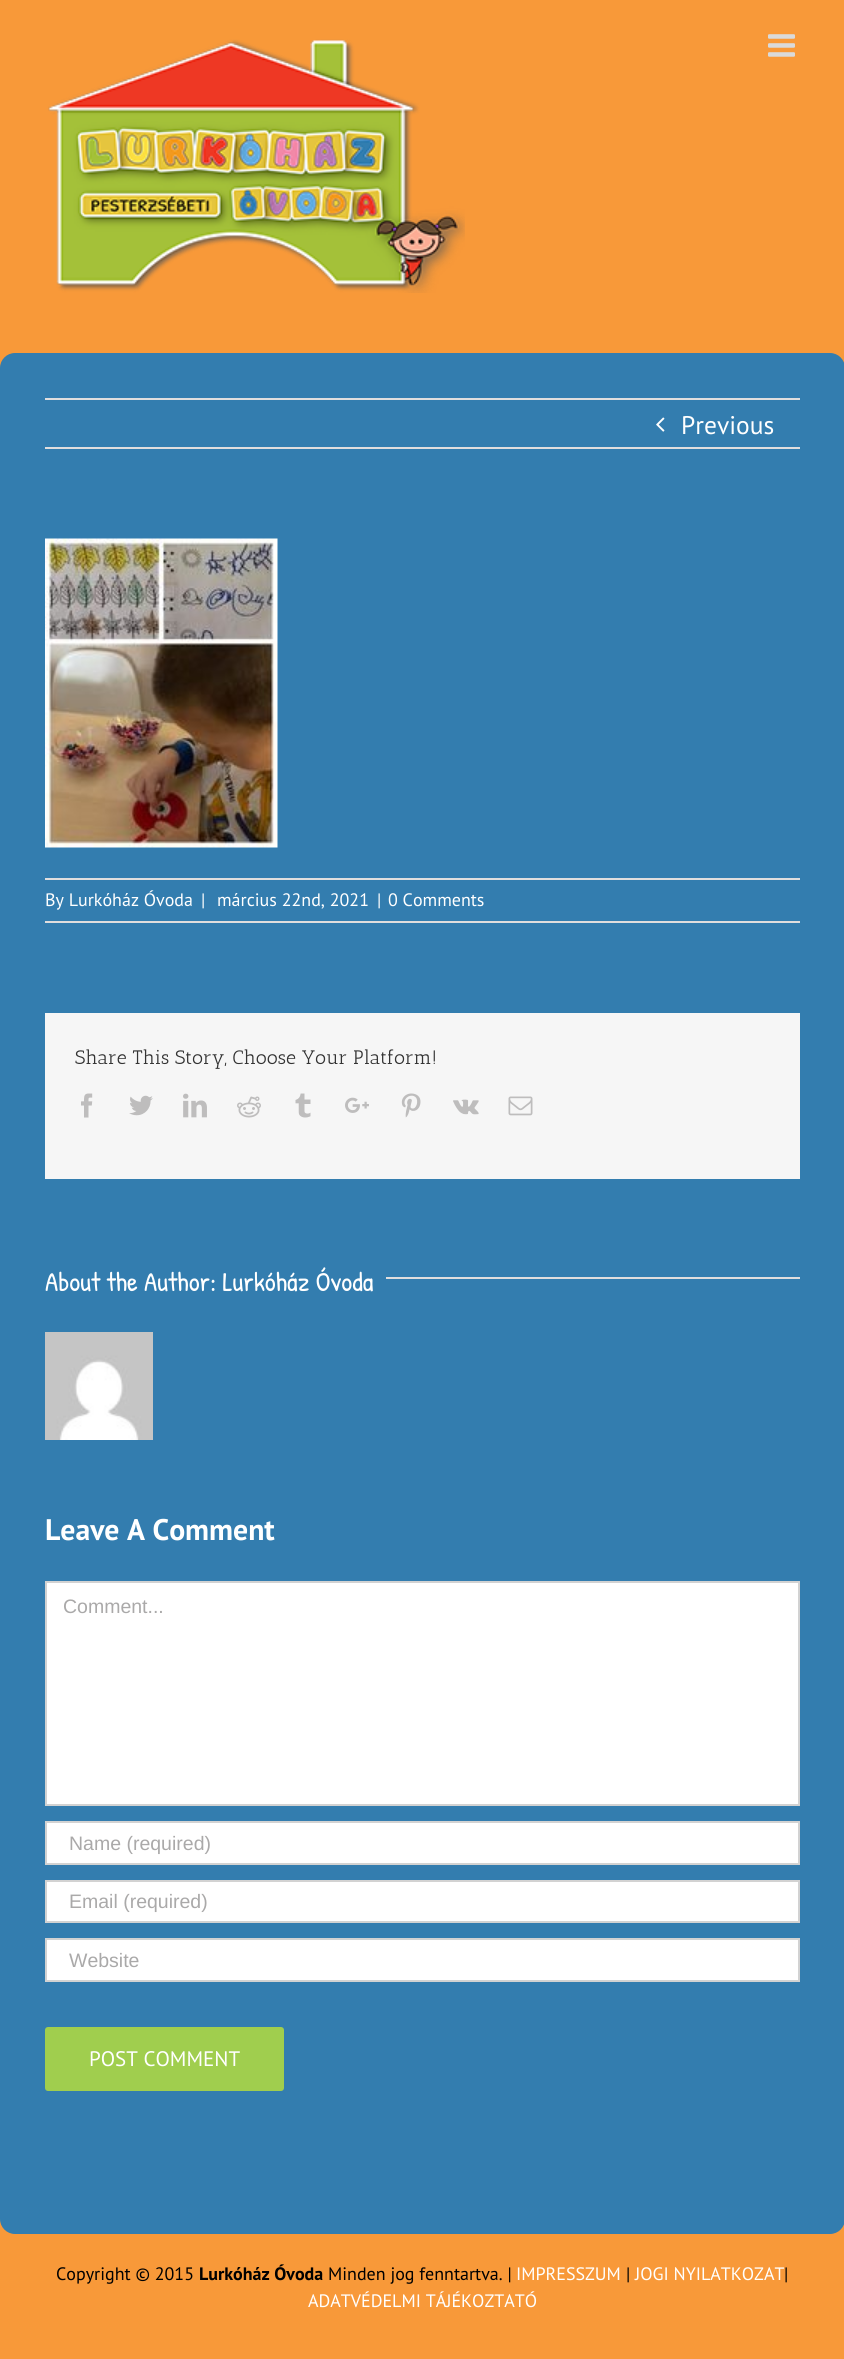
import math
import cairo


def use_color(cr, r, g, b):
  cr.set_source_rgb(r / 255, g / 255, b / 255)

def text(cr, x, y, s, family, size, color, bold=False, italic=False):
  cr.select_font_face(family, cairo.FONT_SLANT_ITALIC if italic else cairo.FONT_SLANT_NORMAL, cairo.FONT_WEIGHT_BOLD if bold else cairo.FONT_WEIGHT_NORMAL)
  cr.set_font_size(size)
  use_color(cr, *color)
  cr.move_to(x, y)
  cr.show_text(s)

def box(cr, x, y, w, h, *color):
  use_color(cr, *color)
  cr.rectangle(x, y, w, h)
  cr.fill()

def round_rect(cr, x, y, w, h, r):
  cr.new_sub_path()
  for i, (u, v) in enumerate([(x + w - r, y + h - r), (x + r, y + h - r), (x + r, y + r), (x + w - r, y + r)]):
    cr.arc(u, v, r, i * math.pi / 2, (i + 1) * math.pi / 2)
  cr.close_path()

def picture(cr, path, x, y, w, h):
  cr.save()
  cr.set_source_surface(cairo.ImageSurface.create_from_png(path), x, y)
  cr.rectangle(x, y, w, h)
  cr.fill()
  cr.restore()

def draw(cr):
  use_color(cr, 255, 255, 255)
  cr.paint()
  picture(cr, "img_01.png", 0, 0, 844, 2359)
  picture(cr, "img_02.png", 48, 39, 417, 254)
  picture(cr, "img_03.png", 768, 34, 27, 23)
  use_color(cr, 51, 125, 175)
  round_rect(cr, 0, 353, 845, 1881, 15)
  cr.fill()
  box(cr, 45, 398, 755, 2, 224, 222, 222)
  box(cr, 45, 447, 755, 2, 224, 222, 222)
  picture(cr, "img_04.png", 656, 417, 9, 15)
  picture(cr, "img_05.png", 45, 538, 233, 310)
  box(cr, 45, 878, 755, 2, 224, 222, 222)
  box(cr, 45, 921, 755, 2, 224, 222, 222)
  box(cr, 45, 1013, 755, 166, 246, 246, 246)
  picture(cr, "img_06.png", 81, 1093, 12, 25)
  picture(cr, "img_07.png", 129, 1095, 24, 21)
  picture(cr, "img_08.png", 183, 1093, 24, 25)
  picture(cr, "img_09.png", 237, 1096, 24, 22)
  picture(cr, "img_10.png", 295, 1093, 16, 25)
  picture(cr, "img_11.png", 345, 1097, 24, 16)
  picture(cr, "img_12.png", 401, 1093, 20, 25)
  picture(cr, "img_13.png", 453, 1099, 26, 16)
  picture(cr, "img_14.png", 508, 1096, 25, 20)
  box(cr, 386, 1277, 414, 2, 224, 222, 222)
  picture(cr, "img_15.png", 45, 1332, 108, 108)
  use_color(cr, 255, 255, 255)
  cr.rectangle(46, 1582, 753, 223)
  cr.fill_preserve()
  use_color(cr, 210, 210, 210)
  cr.stroke()
  use_color(cr, 255, 255, 255)
  cr.rectangle(46, 1822, 753, 42)
  cr.fill_preserve()
  use_color(cr, 210, 210, 210)
  cr.stroke()
  use_color(cr, 255, 255, 255)
  cr.rectangle(46, 1881, 753, 41)
  cr.fill_preserve()
  use_color(cr, 210, 210, 210)
  cr.stroke()
  use_color(cr, 255, 255, 255)
  cr.rectangle(46, 1939, 753, 42)
  cr.fill_preserve()
  use_color(cr, 210, 210, 210)
  cr.stroke()
  use_color(cr, 160, 206, 78)
  round_rect(cr, 45, 2027, 239, 64, 3)
  cr.fill()
  text(cr, 681, 434, "Previous", "PT Sans", 25.5, (255, 255, 255))
  text(cr, 45, 906, "By Lurkóház Óvoda", "PT Sans", 18, (255, 255, 255))
  text(cr, 201, 906, "|", "PT Sans", 18, (255, 255, 255))
  text(cr, 217, 906, "március 22nd, 2021", "PT Sans", 18, (255, 255, 255))
  text(cr, 377, 906, "|", "PT Sans", 18, (255, 255, 255))
  text(cr, 388, 906, "0 Comments", "PT Sans", 18, (255, 255, 255))
  text(cr, 75, 1064, "Share This Story, Choose Your Platform!", "Antic Slab", 19.5, (51, 51, 51))
  text(cr, 45, 1291, "About the Author: Lurkóház Óvoda", "Patrick Hand", 27, (255, 255, 255))
  text(cr, 45, 1540, "Leave A Comment", "PT Sans", 29.75, (255, 255, 255), bold=True)
  text(cr, 63, 1613, "Comment...", "Liberation Sans", 19.5, (170, 169, 169))
  text(cr, 69, 1850, "Name (required)", "Liberation Sans", 19.5, (170, 169, 169))
  text(cr, 69, 1908, "Email (required)", "Liberation Sans", 19.5, (170, 169, 169))
  text(cr, 69, 1967, "Website", "Liberation Sans", 19.5, (170, 169, 169))
  text(cr, 89, 2066, "POST COMMENT", "PT Sans", 21, (255, 255, 255))
  text(cr, 56, 2280, "Copyright © 2015", "PT Sans", 18, (0, 0, 0))
  text(cr, 199, 2280, "Lurkóház Óvoda", "PT Sans", 18, (0, 0, 0), bold=True)
  text(cr, 328, 2280, "Minden jog fenntartva. |", "PT Sans", 18, (0, 0, 0))
  text(cr, 516, 2280, "IMPRESSZUM", "PT Sans", 18, (255, 255, 255))
  text(cr, 626, 2280, "|", "PT Sans", 18, (0, 0, 0))
  text(cr, 635, 2280, "JOGI NYILATKOZAT", "PT Sans", 18, (255, 255, 255))
  text(cr, 784, 2280, "|", "PT Sans", 18, (0, 0, 0))
  text(cr, 308, 2307, "ADATVÉDELMI TÁJÉKOZTATÓ", "PT Sans", 18, (255, 255, 255))


surface = cairo.ImageSurface(cairo.FORMAT_RGB24, 844, 2359)
cr = cairo.Context(surface)
options = cairo.FontOptions()
options.set_hint_metrics(cairo.HINT_METRICS_OFF)
options.set_hint_style(cairo.HINT_STYLE_NONE)
cr.set_font_options(options)
cr.set_miter_limit(4)
draw(cr)
surface.write_to_png("out.png")
